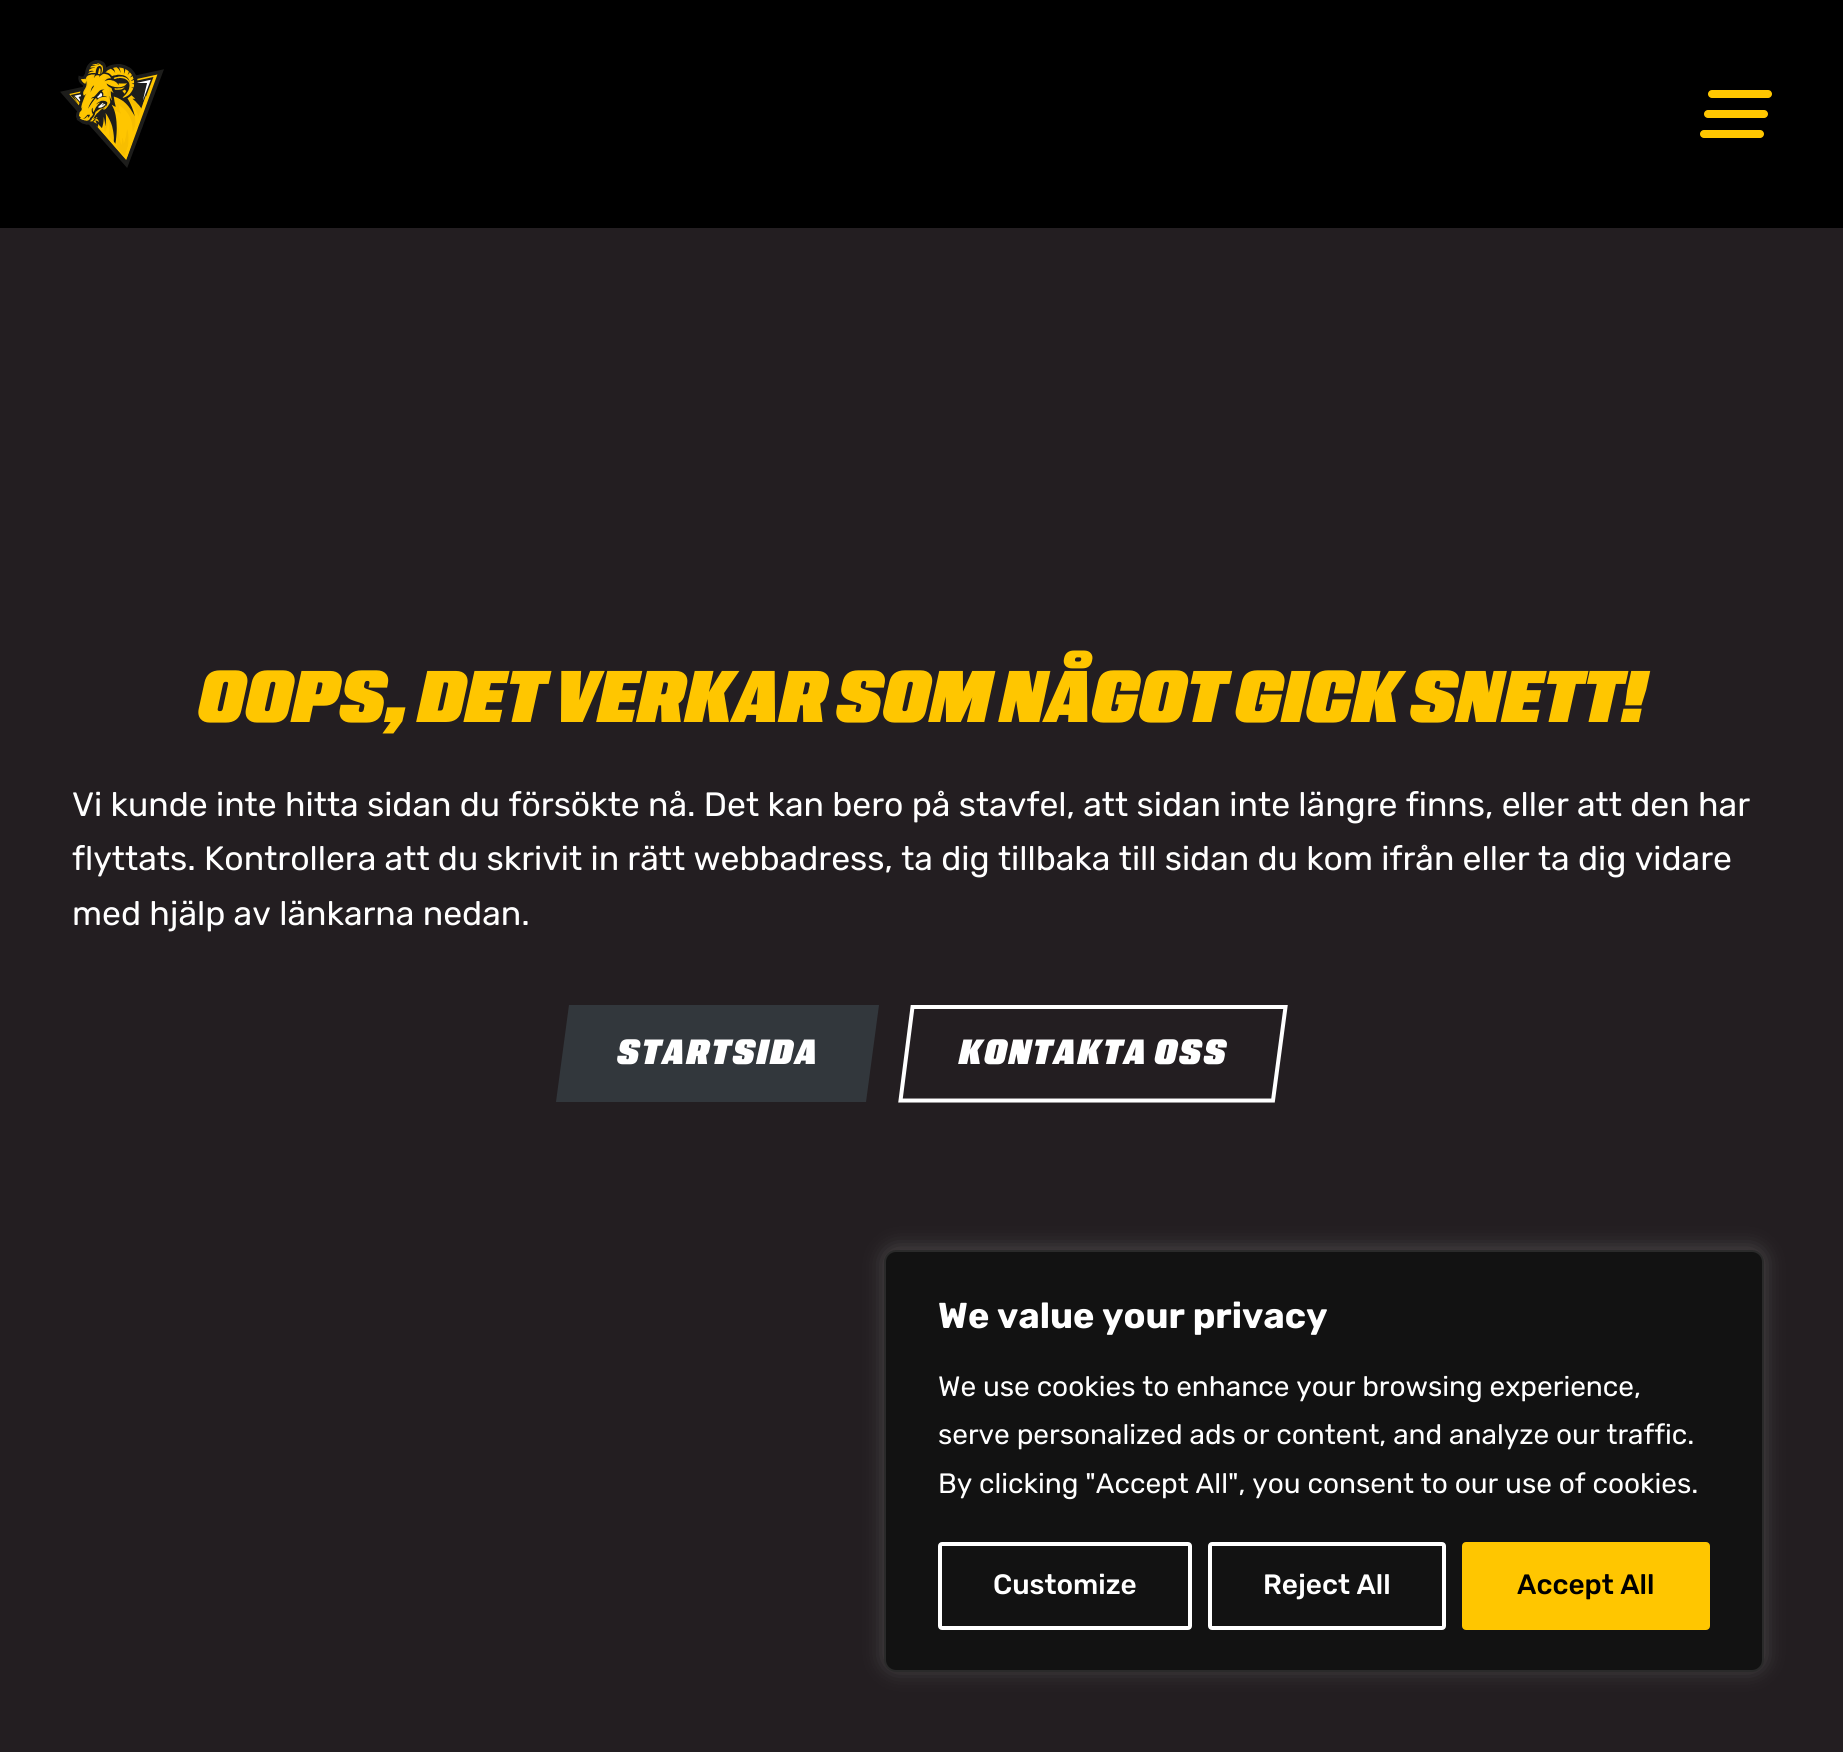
import math
import cairo


def use_color(cr, r, g, b):
  cr.set_source_rgb(r / 255, g / 255, b / 255)

def text(cr, x, y, s, family, size, color, bold=False, italic=False):
  cr.select_font_face(family, cairo.FONT_SLANT_ITALIC if italic else cairo.FONT_SLANT_NORMAL, cairo.FONT_WEIGHT_BOLD if bold else cairo.FONT_WEIGHT_NORMAL)
  cr.set_font_size(size)
  use_color(cr, *color)
  cr.move_to(x, y)
  cr.show_text(s)

def spaced_text(cr, x, y, s, letter, word):
  cr.move_to(x, y)
  for ch in s:
    cr.show_text(ch)
    cr.rel_move_to(letter + word * (ch == ' '), 0)

def box(cr, x, y, w, h, *color):
  use_color(cr, *color)
  cr.rectangle(x, y, w, h)
  cr.fill()

def round_rect(cr, x, y, w, h, r):
  cr.new_sub_path()
  for i, (u, v) in enumerate([(x + w - r, y + h - r), (x + r, y + h - r), (x + r, y + r), (x + w - r, y + r)]):
    cr.arc(u, v, r, i * math.pi / 2, (i + 1) * math.pi / 2)
  cr.close_path()

def shadow(cr, x, y, w, h, r, blur, alpha):
  cr.push_group_with_content(cairo.CONTENT_ALPHA)
  cr.set_operator(cairo.OPERATOR_SOURCE)
  for i in range(15, -16, -2):
    e = blur * i / 6
    if min(w, h) + 2 * e > 0:
      cr.set_source_rgba(0, 0, 0, alpha * math.erfc((i - 1) / 8.5) / 2)
      round_rect(cr, x - e, y - e, w + 2 * e, h + 2 * e, max(0, min(r + e + blur * .6, min(w, h) / 2 + e)))
      cr.fill()
  cr.mask(cr.pop_group())

def picture(cr, path, x, y, w, h):
  cr.save()
  cr.set_source_surface(cairo.ImageSurface.create_from_png(path), x, y)
  cr.rectangle(x, y, w, h)
  cr.fill()
  cr.restore()

def draw(cr):
  use_color(cr, 35, 30, 33)
  cr.paint()
  box(cr, 0, 0, 1843, 228, 0, 0, 0)
  picture(cr, "img_01.png", 60, 60, 104, 108)
  use_color(cr, 255, 198, 0)
  round_rect(cr, 1708, 90, 64, 8, 4)
  cr.fill()
  round_rect(cr, 1704, 110, 64, 8, 4)
  cr.fill()
  round_rect(cr, 1700, 130, 64, 8, 4)
  cr.fill()
  use_color(cr, 50, 55, 60)
  cr.new_path()
  cr.move_to(569, 1005)
  cr.line_to(879, 1005)
  cr.line_to(866, 1102)
  cr.line_to(556, 1102)
  cr.close_path()
  cr.fill()
  cr.new_path()
  cr.move_to(912.5, 1007)
  cr.line_to(1285.5, 1007)
  cr.line_to(1273, 1100.5)
  cr.line_to(900.5, 1100.5)
  cr.close_path()
  use_color(cr, 255, 255, 255)
  cr.set_line_width(4)
  cr.stroke()
  use_color(cr, 172, 171, 171)
  shadow(cr, 884, 1248, 880, 422, 12, 10, 0.3)
  use_color(cr, 18, 18, 18)
  round_rect(cr, 885, 1251, 878, 420, 11)
  cr.fill_preserve()
  use_color(cr, 42, 42, 42)
  cr.set_line_width(2)
  cr.stroke()
  round_rect(cr, 940, 1544, 250, 84, 2)
  use_color(cr, 255, 255, 255)
  cr.set_line_width(4)
  cr.stroke()
  round_rect(cr, 1210, 1544, 234, 84, 2)
  cr.stroke()
  use_color(cr, 255, 198, 0)
  round_rect(cr, 1464, 1544, 244, 84, 2)
  cr.fill_preserve()
  cr.stroke()
  text(cr, 198, 722, "OOPS, DET VERKAR SOM NÅGOT GICK SNETT!", "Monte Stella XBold", 75.1, (255, 198, 0), bold=True, italic=True)
  text(cr, 72, 816, "Vi kunde inte hitta sidan du försökte nå. Det kan bero på stavfel, att sidan inte längre finns, eller att den har", "Rubik", 33.75, (255, 255, 255))
  text(cr, 72, 870, "flyttats. Kontrollera att du skrivit in rätt webbadress, ta dig tillbaka till sidan du kom ifrån eller ta dig vidare", "Rubik", 33.75, (255, 255, 255))
  text(cr, 72, 925, "med hjälp av länkarna nedan.", "Rubik", 33.75, (255, 255, 255))
  cr.select_font_face("Monte Stella XBold", cairo.FONT_SLANT_ITALIC, cairo.FONT_WEIGHT_BOLD)
  cr.set_font_size(36)
  spaced_text(cr, 617, 1064, "STARTSIDA", 2, 0)
  spaced_text(cr, 959, 1064, "KONTAKTA OSS", 2, 0)
  text(cr, 938, 1328, "We value your privacy", "Rubik", 36, (255, 255, 255), bold=True)
  text(cr, 938, 1396, "We use cookies to enhance your browsing experience,", "Rubik", 28, (255, 255, 255))
  text(cr, 938, 1444, "serve personalized ads or content, and analyze our traffic.", "Rubik", 28, (255, 255, 255))
  text(cr, 938, 1493, "By clicking \"Accept All\", you consent to our use of cookies.", "Rubik", 28, (255, 255, 255))
  text(cr, 993, 1594, "Customize", "Rubik Medium", 28, (255, 255, 255))
  text(cr, 1263, 1594, "Reject All", "Rubik Medium", 28, (255, 255, 255))
  text(cr, 1517, 1594, "Accept All", "Rubik Medium", 28, (0, 0, 0))


surface = cairo.ImageSurface(cairo.FORMAT_RGB24, 1843, 1752)
cr = cairo.Context(surface)
options = cairo.FontOptions()
options.set_hint_metrics(cairo.HINT_METRICS_OFF)
options.set_hint_style(cairo.HINT_STYLE_NONE)
cr.set_font_options(options)
cr.set_miter_limit(4)
draw(cr)
surface.write_to_png("out.png")
